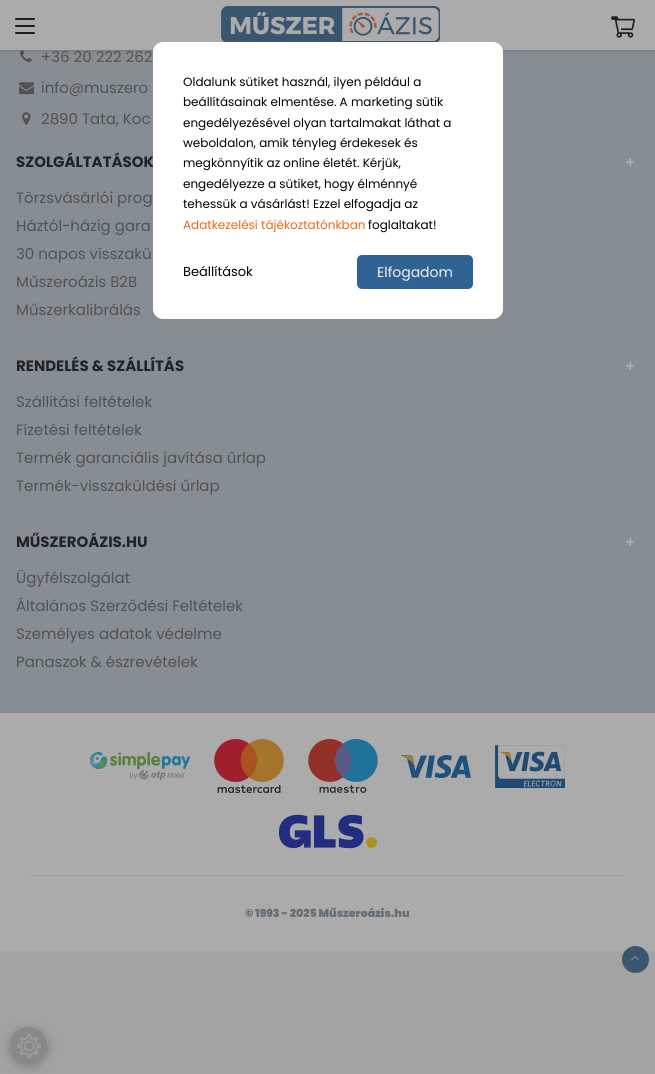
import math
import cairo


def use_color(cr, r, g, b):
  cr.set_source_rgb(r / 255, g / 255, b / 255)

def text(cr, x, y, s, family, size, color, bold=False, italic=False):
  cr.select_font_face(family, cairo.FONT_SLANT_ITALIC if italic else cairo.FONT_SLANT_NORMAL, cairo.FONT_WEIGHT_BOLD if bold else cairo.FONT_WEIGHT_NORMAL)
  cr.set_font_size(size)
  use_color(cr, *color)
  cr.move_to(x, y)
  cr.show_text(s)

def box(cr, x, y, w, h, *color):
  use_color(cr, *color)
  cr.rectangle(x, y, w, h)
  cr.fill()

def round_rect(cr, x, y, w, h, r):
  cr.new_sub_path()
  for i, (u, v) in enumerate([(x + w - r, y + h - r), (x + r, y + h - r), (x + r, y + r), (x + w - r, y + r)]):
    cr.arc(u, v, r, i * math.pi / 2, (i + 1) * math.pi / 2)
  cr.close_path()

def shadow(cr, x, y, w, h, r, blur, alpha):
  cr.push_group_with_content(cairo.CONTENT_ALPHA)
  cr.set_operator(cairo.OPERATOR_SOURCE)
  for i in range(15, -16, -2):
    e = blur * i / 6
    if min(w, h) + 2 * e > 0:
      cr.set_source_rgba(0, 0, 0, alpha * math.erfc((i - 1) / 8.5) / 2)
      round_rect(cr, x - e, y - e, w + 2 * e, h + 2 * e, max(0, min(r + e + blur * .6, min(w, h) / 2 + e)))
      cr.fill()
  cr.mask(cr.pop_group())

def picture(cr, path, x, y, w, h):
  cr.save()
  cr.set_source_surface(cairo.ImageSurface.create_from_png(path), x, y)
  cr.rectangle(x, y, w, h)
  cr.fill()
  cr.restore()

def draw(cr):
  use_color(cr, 163, 163, 163)
  cr.paint()
  box(cr, 0, 50, 655, 663, 135, 142, 147)
  picture(cr, "img_03.png", 20, 50, 12, 12)
  use_color(cr, 31, 31, 31)
  shadow(cr, 0, 1, 655, 50, 0, 1.5, 0.2)
  box(cr, 0, 0, 655, 50, 171, 171, 171)
  use_color(cr, 31, 31, 31)
  round_rect(cr, 15, 18, 20, 2, 1)
  cr.fill()
  round_rect(cr, 15, 25, 20, 2, 1)
  cr.fill()
  round_rect(cr, 15, 32, 20, 2, 1)
  cr.fill()
  picture(cr, "img_01.png", 221, 6, 219, 36)
  picture(cr, "img_02.png", 611, 16, 24, 22)
  box(cr, 0, 713, 655, 238, 171, 171, 171)
  picture(cr, "img_04.png", 19, 82, 15, 13)
  picture(cr, "img_05.png", 22, 112, 9, 13)
  box(cr, 629, 158, 2, 8, 171, 171, 171)
  box(cr, 626, 161, 8, 2, 171, 171, 171)
  box(cr, 629, 362, 2, 8, 171, 171, 171)
  box(cr, 626, 365, 8, 2, 171, 171, 171)
  box(cr, 629, 538, 2, 8, 171, 171, 171)
  box(cr, 626, 541, 8, 2, 171, 171, 171)
  picture(cr, "img_06.png", 90, 752, 100, 28)
  picture(cr, "img_07.png", 214, 739, 70, 54)
  picture(cr, "img_08.png", 308, 739, 70, 54)
  picture(cr, "img_09.png", 401, 755, 70, 23)
  picture(cr, "img_10.png", 495, 745, 70, 43)
  picture(cr, "img_11.png", 278, 814, 100, 35)
  box(cr, 31, 875, 593, 1, 157, 159, 160)
  use_color(cr, 57, 85, 111)
  cr.arc(635.5, 959.5, 13.5, 0, 2 * math.pi)
  cr.fill()
  use_color(cr, 164, 164, 164)
  cr.new_path()
  cr.move_to(631.5, 960.5)
  cr.line_to(631, 960)
  cr.line_to(635, 956)
  cr.line_to(635.5, 956.5)
  cr.close_path()
  cr.fill()
  cr.new_path()
  cr.move_to(638.5, 960.5)
  cr.line_to(634.5, 956.5)
  cr.line_to(635, 956)
  cr.line_to(639, 960)
  cr.close_path()
  cr.fill()
  cr.save()
  cr.set_fill_rule(cairo.FILL_RULE_EVEN_ODD)
  cr.new_path()
  cr.move_to(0, 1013)
  cr.line_to(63, 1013)
  cr.line_to(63, 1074)
  cr.line_to(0, 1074)
  cr.close_path()
  cr.move_to(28.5, 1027)
  cr.curve_to(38.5, 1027, 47, 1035.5, 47, 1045.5)
  cr.curve_to(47, 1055.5, 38.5, 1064, 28.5, 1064)
  cr.curve_to(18.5, 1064, 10, 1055.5, 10, 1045.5)
  cr.curve_to(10, 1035.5, 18.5, 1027, 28.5, 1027)
  cr.close_path()
  cr.clip()
  use_color(cr, 31, 31, 31)
  shadow(cr, 10, 1029, 37, 37, 18.5, 5, 0.3)
  cr.restore()
  cr.set_source_rgba(0.29, 0.29, 0.29, 0.3)
  cr.arc(28.5, 1045.5, 18.5, 0, 2 * math.pi)
  cr.fill()
  picture(cr, "img_12.png", 17, 1034, 24, 24)
  text(cr, 41, 62, "+36 20 222 262", "Poppins", 15, (81, 81, 81))
  text(cr, 41, 93, "info@muszero", "Poppins", 15, (81, 81, 81))
  text(cr, 41, 124, "2890 Tata, Koc", "Poppins", 15, (81, 81, 81))
  text(cr, 16, 167, "SZOLGÁLTATÁSOK", "Poppins", 15, (33, 35, 37), bold=True)
  text(cr, 16, 203, "Törzsvásárlói prog", "Poppins", 15, (81, 81, 81))
  text(cr, 16, 231, "Háztól-házig gara", "Poppins", 15, (81, 81, 81))
  text(cr, 16, 259, "30 napos visszakü", "Poppins", 15, (81, 81, 81))
  text(cr, 16, 287, "Műszeroázis B2B", "Poppins", 15, (81, 81, 81))
  text(cr, 16, 315, "Műszerkalibrálás", "Poppins", 15, (81, 81, 81))
  text(cr, 16, 371, "RENDELÉS & SZÁLLÍTÁS", "Poppins", 15, (33, 35, 37), bold=True)
  text(cr, 16, 407, "Szállítási feltételek", "Poppins", 15, (81, 81, 81))
  text(cr, 16, 435, "Fizetési feltételek", "Poppins", 15, (81, 81, 81))
  text(cr, 16, 463, "Termék garanciális javítása űrlap", "Poppins", 15, (81, 81, 81))
  text(cr, 16, 491, "Termék-visszaküldési űrlap", "Poppins", 15, (81, 81, 81))
  text(cr, 16, 547, "MŰSZEROÁZIS.HU", "Poppins", 15, (33, 35, 37), bold=True)
  text(cr, 16, 583, "Ügyfélszolgálat", "Poppins", 15, (81, 81, 81))
  text(cr, 16, 611, "Általános Szerződési Feltételek", "Poppins", 15, (81, 81, 81))
  text(cr, 16, 639, "Személyes adatok védelme", "Poppins", 15, (81, 81, 81))
  text(cr, 16, 667, "Panaszok & észrevételek", "Poppins", 15, (81, 81, 81))
  text(cr, 245, 917, "© 1993 - 2025 Műszeroázis.hu", "Poppins Black", 11, (102, 110, 117))
  use_color(cr, 255, 255, 255)
  round_rect(cr, 153, 42, 350, 277, 10)
  cr.fill()
  text(cr, 183, 86, "Oldalunk sütiket használ, ilyen például a", "Poppins", 12, (0, 0, 0))
  text(cr, 183, 106, "beállításainak elmentése. A marketing sütik", "Poppins", 12, (0, 0, 0))
  text(cr, 183, 127, "engedélyezésével olyan tartalmakat láthat a", "Poppins", 12, (0, 0, 0))
  text(cr, 183, 147, "weboldalon, amik tényleg érdekesek és", "Poppins", 12, (0, 0, 0))
  text(cr, 183, 167, "megkönnyítik az online életét. Kérjük,", "Poppins", 12, (0, 0, 0))
  text(cr, 183, 188, "engedélyezze a sütiket, hogy élménnyé", "Poppins", 12, (0, 0, 0))
  text(cr, 183, 208, "tehessük a vásárlást! Ezzel elfogadja az", "Poppins", 12, (0, 0, 0))
  text(cr, 183, 229, "Adatkezelési tájékoztatónkban", "Poppins", 12, (242, 101, 19))
  text(cr, 368, 229, "foglaltakat!", "Poppins", 12, (0, 0, 0))
  text(cr, 183, 276, "Beállítások", "Poppins", 13, (0, 0, 0))
  use_color(cr, 48, 99, 147)
  round_rect(cr, 357, 255, 116, 34, 5)
  cr.fill()
  text(cr, 377, 277, "Elfogadom", "Poppins", 14, (242, 242, 242))


surface = cairo.ImageSurface(cairo.FORMAT_RGB24, 655, 1074)
cr = cairo.Context(surface)
options = cairo.FontOptions()
options.set_hint_metrics(cairo.HINT_METRICS_OFF)
options.set_hint_style(cairo.HINT_STYLE_NONE)
cr.set_font_options(options)
cr.set_miter_limit(4)
draw(cr)
surface.write_to_png("out.png")
